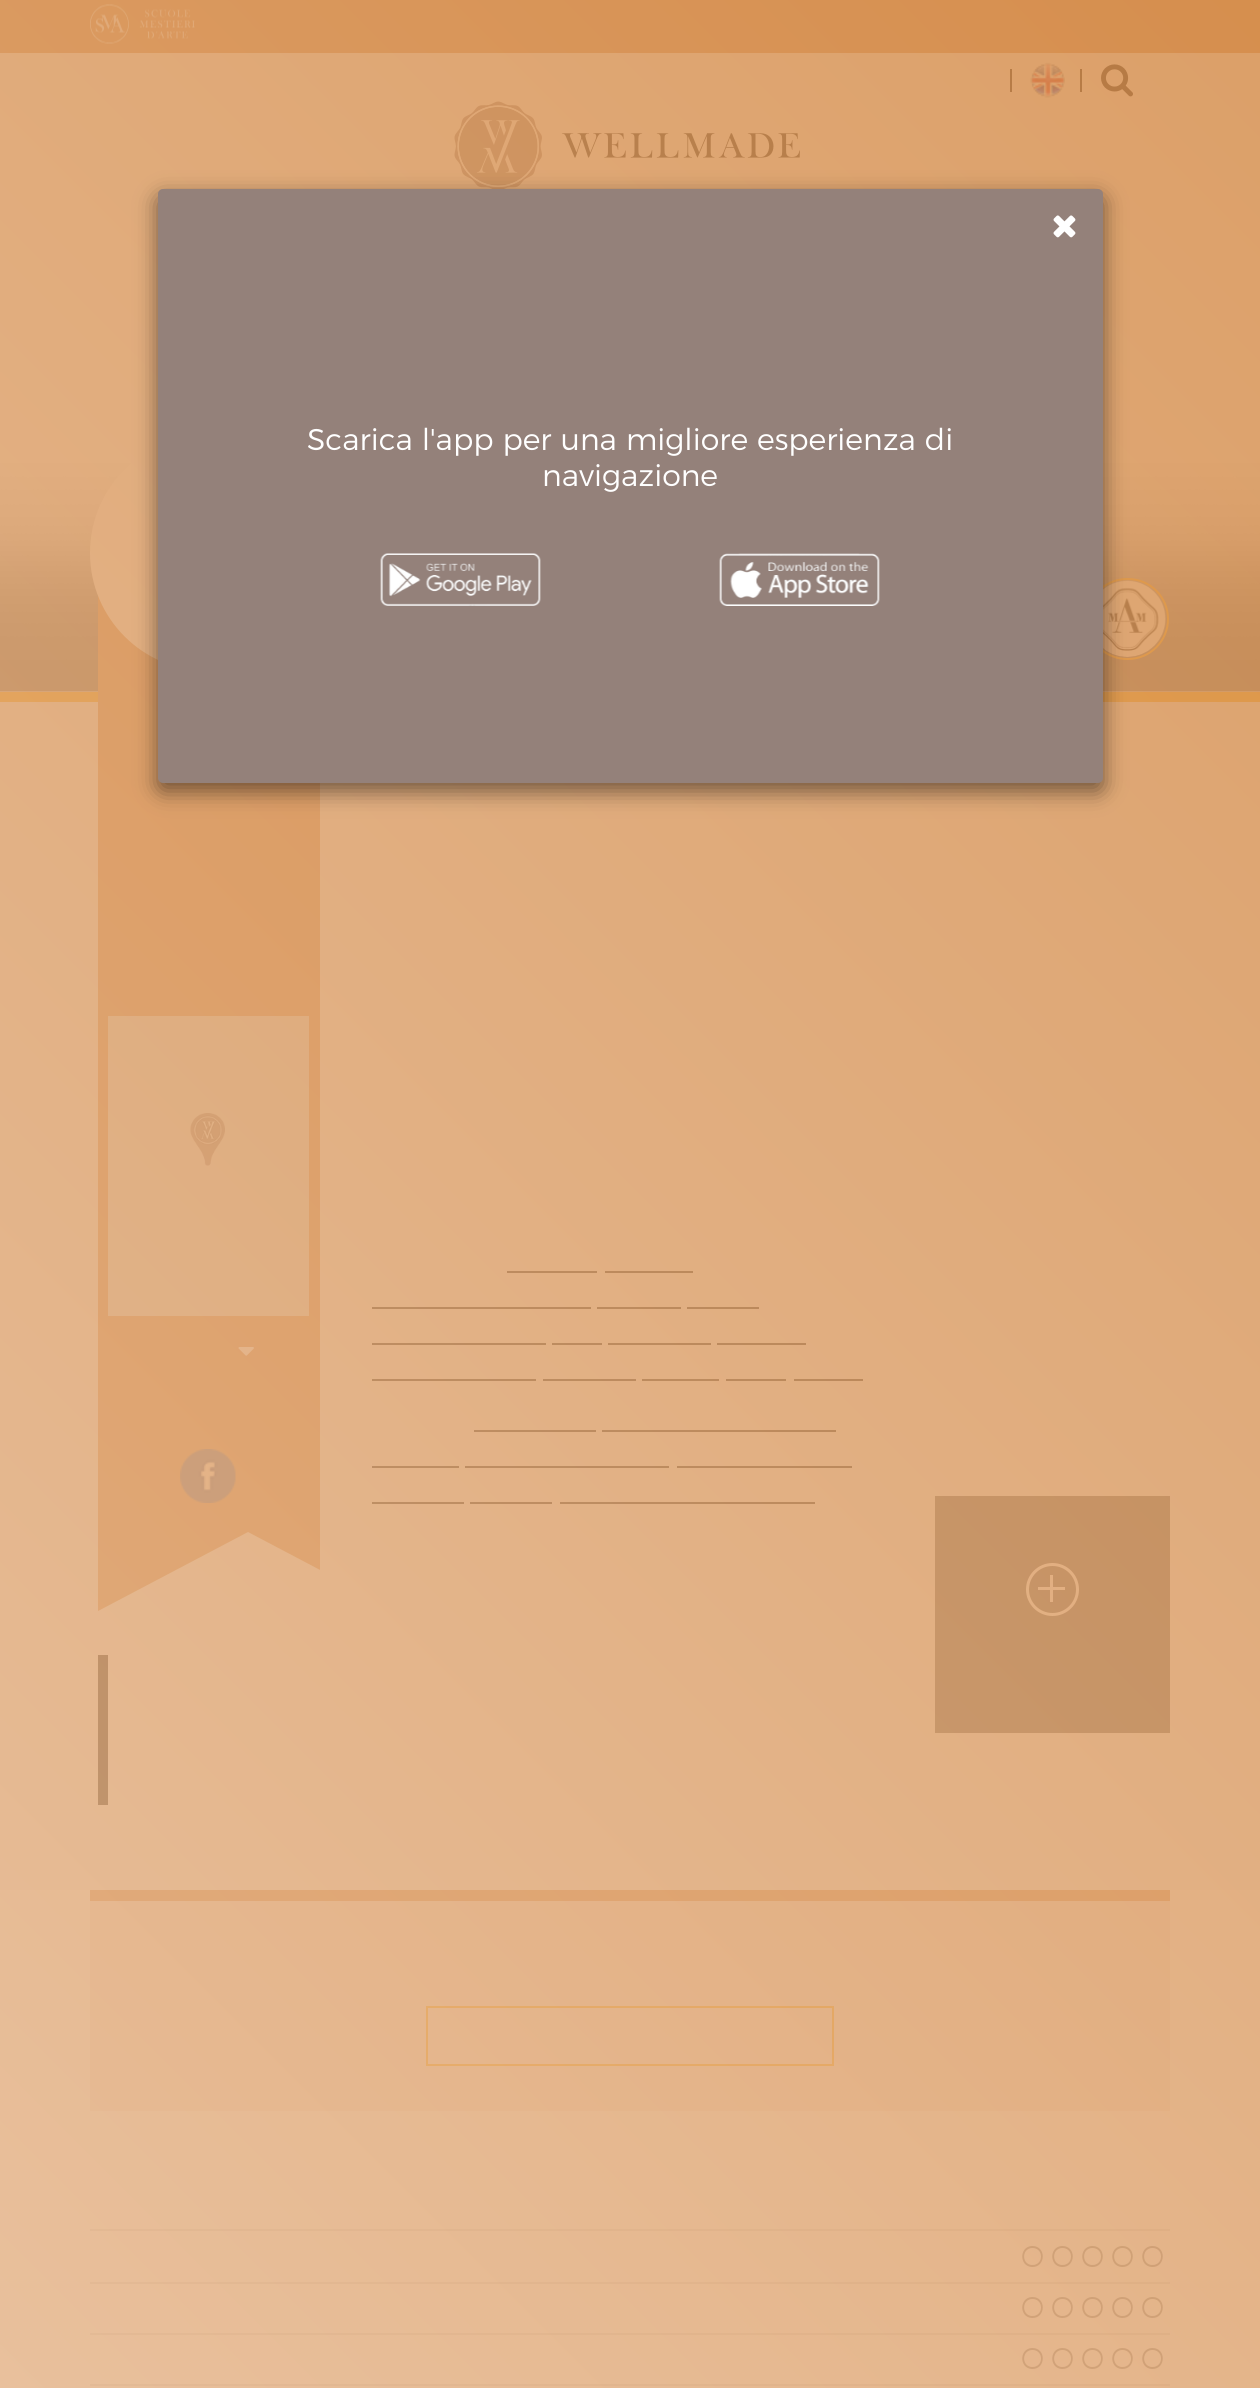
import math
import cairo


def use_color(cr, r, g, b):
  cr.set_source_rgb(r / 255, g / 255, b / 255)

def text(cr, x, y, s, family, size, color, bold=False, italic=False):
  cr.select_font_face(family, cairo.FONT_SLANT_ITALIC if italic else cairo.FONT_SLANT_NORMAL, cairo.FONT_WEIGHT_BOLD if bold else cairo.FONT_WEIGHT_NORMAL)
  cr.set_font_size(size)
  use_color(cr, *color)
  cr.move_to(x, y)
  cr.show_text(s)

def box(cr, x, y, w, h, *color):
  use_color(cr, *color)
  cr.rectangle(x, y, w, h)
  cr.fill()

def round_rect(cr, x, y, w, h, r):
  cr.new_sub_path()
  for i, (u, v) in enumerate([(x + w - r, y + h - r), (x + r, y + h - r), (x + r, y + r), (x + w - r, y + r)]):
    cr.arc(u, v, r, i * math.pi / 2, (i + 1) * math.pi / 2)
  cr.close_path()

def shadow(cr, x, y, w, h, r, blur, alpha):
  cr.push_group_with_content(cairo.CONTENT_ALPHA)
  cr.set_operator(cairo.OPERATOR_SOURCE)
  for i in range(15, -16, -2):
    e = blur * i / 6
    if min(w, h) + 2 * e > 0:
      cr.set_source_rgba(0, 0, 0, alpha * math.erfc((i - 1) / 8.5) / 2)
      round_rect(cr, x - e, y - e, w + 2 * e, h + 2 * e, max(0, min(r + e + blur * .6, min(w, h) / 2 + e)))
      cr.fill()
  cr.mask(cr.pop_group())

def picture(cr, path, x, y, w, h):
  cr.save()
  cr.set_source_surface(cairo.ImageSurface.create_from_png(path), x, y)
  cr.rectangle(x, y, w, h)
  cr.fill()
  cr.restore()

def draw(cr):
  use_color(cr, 255, 255, 255)
  cr.paint()
  box(cr, 0, 0, 1260, 53, 214, 143, 78)
  picture(cr, "img_01.png", 90, 4, 105, 40)
  box(cr, 1010, 69, 2, 23, 0, 0, 0)
  picture(cr, "img_02.png", 1030, 62, 35, 36)
  box(cr, 1080, 69, 2, 23, 0, 0, 0)
  picture(cr, "img_03.png", 1101, 64, 32, 33)
  picture(cr, "img_04.png", 454, 101, 346, 88)
  box(cr, 0, 702, 1260, 1188, 246, 246, 246)
  box(cr, 0, 692, 1260, 10, 255, 168, 0)
  picture(cr, "img_12.png", 0, 463, 1260, 229)
  box(cr, 98, 595, 222, 1016, 214, 143, 78)
  use_color(cr, 255, 255, 255)
  round_rect(cr, 94.5, 439.5, 228, 227, 113.5)
  cr.fill_preserve()
  cr.set_line_width(9)
  cr.stroke()
  box(cr, 108, 1016, 201, 300, 229, 227, 223)
  picture(cr, "img_08.png", 190, 1113, 35, 53)
  picture(cr, "img_09.png", 238, 1347, 16, 9)
  picture(cr, "img_10.png", 180, 1449, 56, 54)
  cr.save()
  cr.rectangle(98, 545, 222, 1066)
  cr.clip()
  use_color(cr, 246, 246, 246)
  cr.new_path()
  cr.move_to(398, 1611)
  cr.line_to(98, 1611)
  cr.line_to(248, 1532)
  cr.close_path()
  cr.fill()
  cr.restore()
  box(cr, 98, 1655, 10, 150, 0, 0, 0)
  round_rect(cr, 1087, 579, 81, 80, 40)
  use_color(cr, 255, 168, 0)
  cr.set_line_width(2)
  cr.stroke()
  cr.set_source_rgba(1, 1, 1, 0.25)
  round_rect(cr, 1089, 581, 77, 76, 38)
  cr.fill()
  picture(cr, "img_11.png", 1103, 580, 63, 77)
  box(cr, 507, 1271, 90, 2, 0, 0, 0)
  box(cr, 605, 1271, 88, 2, 0, 0, 0)
  box(cr, 372, 1307, 219, 2, 0, 0, 0)
  box(cr, 597, 1307, 84, 2, 0, 0, 0)
  box(cr, 687, 1307, 72, 2, 0, 0, 0)
  box(cr, 372, 1343, 174, 2, 0, 0, 0)
  box(cr, 552, 1343, 50, 2, 0, 0, 0)
  box(cr, 608, 1343, 103, 2, 0, 0, 0)
  box(cr, 717, 1343, 89, 2, 0, 0, 0)
  box(cr, 372, 1379, 164, 2, 0, 0, 0)
  box(cr, 543, 1379, 93, 2, 0, 0, 0)
  box(cr, 642, 1379, 77, 2, 0, 0, 0)
  box(cr, 726, 1379, 60, 2, 0, 0, 0)
  box(cr, 794, 1379, 69, 2, 0, 0, 0)
  box(cr, 474, 1430, 122, 2, 0, 0, 0)
  box(cr, 602, 1430, 234, 2, 0, 0, 0)
  box(cr, 372, 1466, 87, 2, 0, 0, 0)
  box(cr, 465, 1466, 204, 2, 0, 0, 0)
  box(cr, 677, 1466, 175, 2, 0, 0, 0)
  box(cr, 372, 1502, 92, 2, 0, 0, 0)
  box(cr, 470, 1502, 82, 2, 0, 0, 0)
  box(cr, 560, 1502, 255, 2, 0, 0, 0)
  box(cr, 935, 1496, 235, 237, 74, 74, 74)
  cr.arc(1052.5, 1589.5, 25, 0, 2 * math.pi)
  use_color(cr, 255, 255, 255)
  cr.set_line_width(3)
  cr.stroke()
  box(cr, 1038, 1587, 27, 3, 255, 255, 255)
  box(cr, 1050, 1575, 3, 27, 255, 255, 255)
  box(cr, 90, 1901, 1080, 210, 249, 238, 229)
  box(cr, 90, 1890, 1080, 11, 214, 143, 78)
  cr.rectangle(427, 2007, 406, 58)
  use_color(cr, 255, 168, 0)
  cr.set_line_width(2)
  cr.stroke()
  box(cr, 90, 2229, 1080, 2, 220, 220, 220)
  box(cr, 90, 2282, 1080, 2, 220, 220, 220)
  use_color(cr, 120, 120, 120)
  cr.new_path()
  cr.move_to(1032.5, 2246)
  cr.line_to(1032, 2246)
  cr.line_to(1032, 2248)
  cr.curve_to(1044, 2247.5, 1044, 2265.5, 1032, 2265)
  cr.line_to(1032, 2267)
  cr.curve_to(1046, 2267.5, 1046.5, 2246, 1032.5, 2246)
  cr.close_path()
  cr.move_to(1032, 2267)
  cr.curve_to(1019, 2266.5, 1019, 2246.5, 1032, 2246)
  cr.line_to(1032, 2248)
  cr.curve_to(1021.5, 2248.5, 1021.5, 2264.5, 1032, 2265)
  cr.close_path()
  cr.fill()
  cr.new_path()
  cr.move_to(1092.5, 2246)
  cr.line_to(1092, 2246)
  cr.line_to(1092, 2248)
  cr.curve_to(1104, 2247.5, 1104, 2265.5, 1092, 2265)
  cr.line_to(1092, 2267)
  cr.curve_to(1106, 2267.5, 1106.5, 2246, 1092.5, 2246)
  cr.close_path()
  cr.move_to(1092, 2267)
  cr.curve_to(1079, 2266.5, 1079, 2246.5, 1092, 2246)
  cr.line_to(1092, 2248)
  cr.curve_to(1081.5, 2248.5, 1081.5, 2264.5, 1092, 2265)
  cr.close_path()
  cr.move_to(1062.5, 2246)
  cr.line_to(1062, 2246)
  cr.line_to(1062, 2248)
  cr.curve_to(1074, 2247.5, 1074, 2265.5, 1062, 2265)
  cr.line_to(1062, 2267)
  cr.curve_to(1076, 2267.5, 1076.5, 2246, 1062.5, 2246)
  cr.close_path()
  cr.move_to(1062, 2267)
  cr.curve_to(1049, 2266.5, 1049, 2246.5, 1062, 2246)
  cr.line_to(1062, 2248)
  cr.curve_to(1051.5, 2248.5, 1051.5, 2264.5, 1062, 2265)
  cr.close_path()
  cr.fill()
  cr.new_path()
  cr.move_to(1152.5, 2246)
  cr.line_to(1152, 2246)
  cr.line_to(1152, 2248)
  cr.curve_to(1164, 2247.5, 1164, 2265.5, 1152, 2265)
  cr.line_to(1152, 2267)
  cr.curve_to(1166, 2267.5, 1166.5, 2246, 1152.5, 2246)
  cr.close_path()
  cr.move_to(1152, 2267)
  cr.curve_to(1139, 2266.5, 1139, 2246.5, 1152, 2246)
  cr.line_to(1152, 2248)
  cr.curve_to(1141.5, 2248.5, 1141.5, 2264.5, 1152, 2265)
  cr.close_path()
  cr.move_to(1122.5, 2246)
  cr.line_to(1122, 2246)
  cr.line_to(1122, 2248)
  cr.curve_to(1134, 2247.5, 1134, 2265.5, 1122, 2265)
  cr.line_to(1122, 2267)
  cr.curve_to(1136, 2267.5, 1136.5, 2246, 1122.5, 2246)
  cr.close_path()
  cr.move_to(1122, 2267)
  cr.curve_to(1109, 2266.5, 1109, 2246.5, 1122, 2246)
  cr.line_to(1122, 2248)
  cr.curve_to(1111.5, 2248.5, 1111.5, 2264.5, 1122, 2265)
  cr.close_path()
  cr.fill()
  box(cr, 90, 2333, 1080, 2, 220, 220, 220)
  use_color(cr, 120, 120, 120)
  cr.new_path()
  cr.move_to(1032.5, 2297)
  cr.line_to(1032, 2297)
  cr.line_to(1032, 2299)
  cr.curve_to(1044, 2298.5, 1044, 2316.5, 1032, 2316)
  cr.line_to(1032, 2318)
  cr.curve_to(1046, 2318.5, 1046.5, 2297, 1032.5, 2297)
  cr.close_path()
  cr.move_to(1032, 2318)
  cr.curve_to(1019, 2317.5, 1019, 2297.5, 1032, 2297)
  cr.line_to(1032, 2299)
  cr.curve_to(1021.5, 2299.5, 1021.5, 2315.5, 1032, 2316)
  cr.close_path()
  cr.fill()
  cr.new_path()
  cr.move_to(1092.5, 2297)
  cr.line_to(1092, 2297)
  cr.line_to(1092, 2299)
  cr.curve_to(1104, 2298.5, 1104, 2316.5, 1092, 2316)
  cr.line_to(1092, 2318)
  cr.curve_to(1106, 2318.5, 1106.5, 2297, 1092.5, 2297)
  cr.close_path()
  cr.move_to(1092, 2318)
  cr.curve_to(1079, 2317.5, 1079, 2297.5, 1092, 2297)
  cr.line_to(1092, 2299)
  cr.curve_to(1081.5, 2299.5, 1081.5, 2315.5, 1092, 2316)
  cr.close_path()
  cr.move_to(1062.5, 2297)
  cr.line_to(1062, 2297)
  cr.line_to(1062, 2299)
  cr.curve_to(1074, 2298.5, 1074, 2316.5, 1062, 2316)
  cr.line_to(1062, 2318)
  cr.curve_to(1076, 2318.5, 1076.5, 2297, 1062.5, 2297)
  cr.close_path()
  cr.move_to(1062, 2318)
  cr.curve_to(1049, 2317.5, 1049, 2297.5, 1062, 2297)
  cr.line_to(1062, 2299)
  cr.curve_to(1051.5, 2299.5, 1051.5, 2315.5, 1062, 2316)
  cr.close_path()
  cr.fill()
  cr.new_path()
  cr.move_to(1152.5, 2297)
  cr.line_to(1152, 2297)
  cr.line_to(1152, 2299)
  cr.curve_to(1164, 2298.5, 1164, 2316.5, 1152, 2316)
  cr.line_to(1152, 2318)
  cr.curve_to(1166, 2318.5, 1166.5, 2297, 1152.5, 2297)
  cr.close_path()
  cr.move_to(1152, 2318)
  cr.curve_to(1139, 2317.5, 1139, 2297.5, 1152, 2297)
  cr.line_to(1152, 2299)
  cr.curve_to(1141.5, 2299.5, 1141.5, 2315.5, 1152, 2316)
  cr.close_path()
  cr.move_to(1122.5, 2297)
  cr.line_to(1122, 2297)
  cr.line_to(1122, 2299)
  cr.curve_to(1134, 2298.5, 1134, 2316.5, 1122, 2316)
  cr.line_to(1122, 2318)
  cr.curve_to(1136, 2318.5, 1136.5, 2297, 1122.5, 2297)
  cr.close_path()
  cr.move_to(1122, 2318)
  cr.curve_to(1109, 2317.5, 1109, 2297.5, 1122, 2297)
  cr.line_to(1122, 2299)
  cr.curve_to(1111.5, 2299.5, 1111.5, 2315.5, 1122, 2316)
  cr.close_path()
  cr.fill()
  box(cr, 90, 2384, 1080, 2, 220, 220, 220)
  use_color(cr, 120, 120, 120)
  cr.new_path()
  cr.move_to(1032.5, 2348)
  cr.line_to(1032, 2348)
  cr.line_to(1032, 2350)
  cr.curve_to(1044, 2349.5, 1044, 2367.5, 1032, 2367)
  cr.line_to(1032, 2369)
  cr.curve_to(1046, 2369.5, 1046.5, 2348, 1032.5, 2348)
  cr.close_path()
  cr.move_to(1032, 2369)
  cr.curve_to(1019, 2368.5, 1019, 2348.5, 1032, 2348)
  cr.line_to(1032, 2350)
  cr.curve_to(1021.5, 2350.5, 1021.5, 2366.5, 1032, 2367)
  cr.close_path()
  cr.fill()
  cr.new_path()
  cr.move_to(1092.5, 2348)
  cr.line_to(1092, 2348)
  cr.line_to(1092, 2350)
  cr.curve_to(1104, 2349.5, 1104, 2367.5, 1092, 2367)
  cr.line_to(1092, 2369)
  cr.curve_to(1106, 2369.5, 1106.5, 2348, 1092.5, 2348)
  cr.close_path()
  cr.move_to(1092, 2369)
  cr.curve_to(1079, 2368.5, 1079, 2348.5, 1092, 2348)
  cr.line_to(1092, 2350)
  cr.curve_to(1081.5, 2350.5, 1081.5, 2366.5, 1092, 2367)
  cr.close_path()
  cr.move_to(1062.5, 2348)
  cr.line_to(1062, 2348)
  cr.line_to(1062, 2350)
  cr.curve_to(1074, 2349.5, 1074, 2367.5, 1062, 2367)
  cr.line_to(1062, 2369)
  cr.curve_to(1076, 2369.5, 1076.5, 2348, 1062.5, 2348)
  cr.close_path()
  cr.move_to(1062, 2369)
  cr.curve_to(1049, 2368.5, 1049, 2348.5, 1062, 2348)
  cr.line_to(1062, 2350)
  cr.curve_to(1051.5, 2350.5, 1051.5, 2366.5, 1062, 2367)
  cr.close_path()
  cr.fill()
  cr.new_path()
  cr.move_to(1152.5, 2348)
  cr.line_to(1152, 2348)
  cr.line_to(1152, 2350)
  cr.curve_to(1164, 2349.5, 1164, 2367.5, 1152, 2367)
  cr.line_to(1152, 2369)
  cr.curve_to(1166, 2369.5, 1166.5, 2348, 1152.5, 2348)
  cr.close_path()
  cr.move_to(1152, 2369)
  cr.curve_to(1139, 2368.5, 1139, 2348.5, 1152, 2348)
  cr.line_to(1152, 2350)
  cr.curve_to(1141.5, 2350.5, 1141.5, 2366.5, 1152, 2367)
  cr.close_path()
  cr.move_to(1122.5, 2348)
  cr.line_to(1122, 2348)
  cr.line_to(1122, 2350)
  cr.curve_to(1134, 2349.5, 1134, 2367.5, 1122, 2367)
  cr.line_to(1122, 2369)
  cr.curve_to(1136, 2369.5, 1136.5, 2348, 1122.5, 2348)
  cr.close_path()
  cr.move_to(1122, 2369)
  cr.curve_to(1109, 2368.5, 1109, 2348.5, 1122, 2348)
  cr.line_to(1122, 2350)
  cr.curve_to(1111.5, 2350.5, 1111.5, 2366.5, 1122, 2367)
  cr.close_path()
  cr.fill()
  gradient = cairo.LinearGradient(-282, 2106, 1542, 282)
  gradient.add_color_stop_rgba(0, 0.898, 0.71, 0.545, 0.85)
  gradient.add_color_stop_rgba(0.99, 0.839, 0.561, 0.306, 0.85)
  cr.set_source(gradient)
  cr.rectangle(0, 0, 1260, 2388)
  cr.fill()
  use_color(cr, 0, 0, 0)
  shadow(cr, 158, 197, 945, 594, 5, 11, 0.5)
  use_color(cr, 148, 129, 122)
  round_rect(cr, 158, 189, 945, 594, 5)
  cr.fill()
  picture(cr, "img_05.png", 1053, 215, 23, 23)
  picture(cr, "img_06.png", 380, 553, 161, 53)
  picture(cr, "img_07.png", 719, 553, 161, 53)
  text(cr, 307, 450, "Scarica l'app per una migliore esperienza di", "Montserrat Light", 30, (255, 255, 255))
  text(cr, 542, 486, "navigazione", "Montserrat Light", 30, (255, 255, 255))


surface = cairo.ImageSurface(cairo.FORMAT_RGB24, 1260, 2388)
cr = cairo.Context(surface)
options = cairo.FontOptions()
options.set_hint_metrics(cairo.HINT_METRICS_OFF)
options.set_hint_style(cairo.HINT_STYLE_NONE)
cr.set_font_options(options)
cr.set_miter_limit(4)
draw(cr)
surface.write_to_png("out.png")
